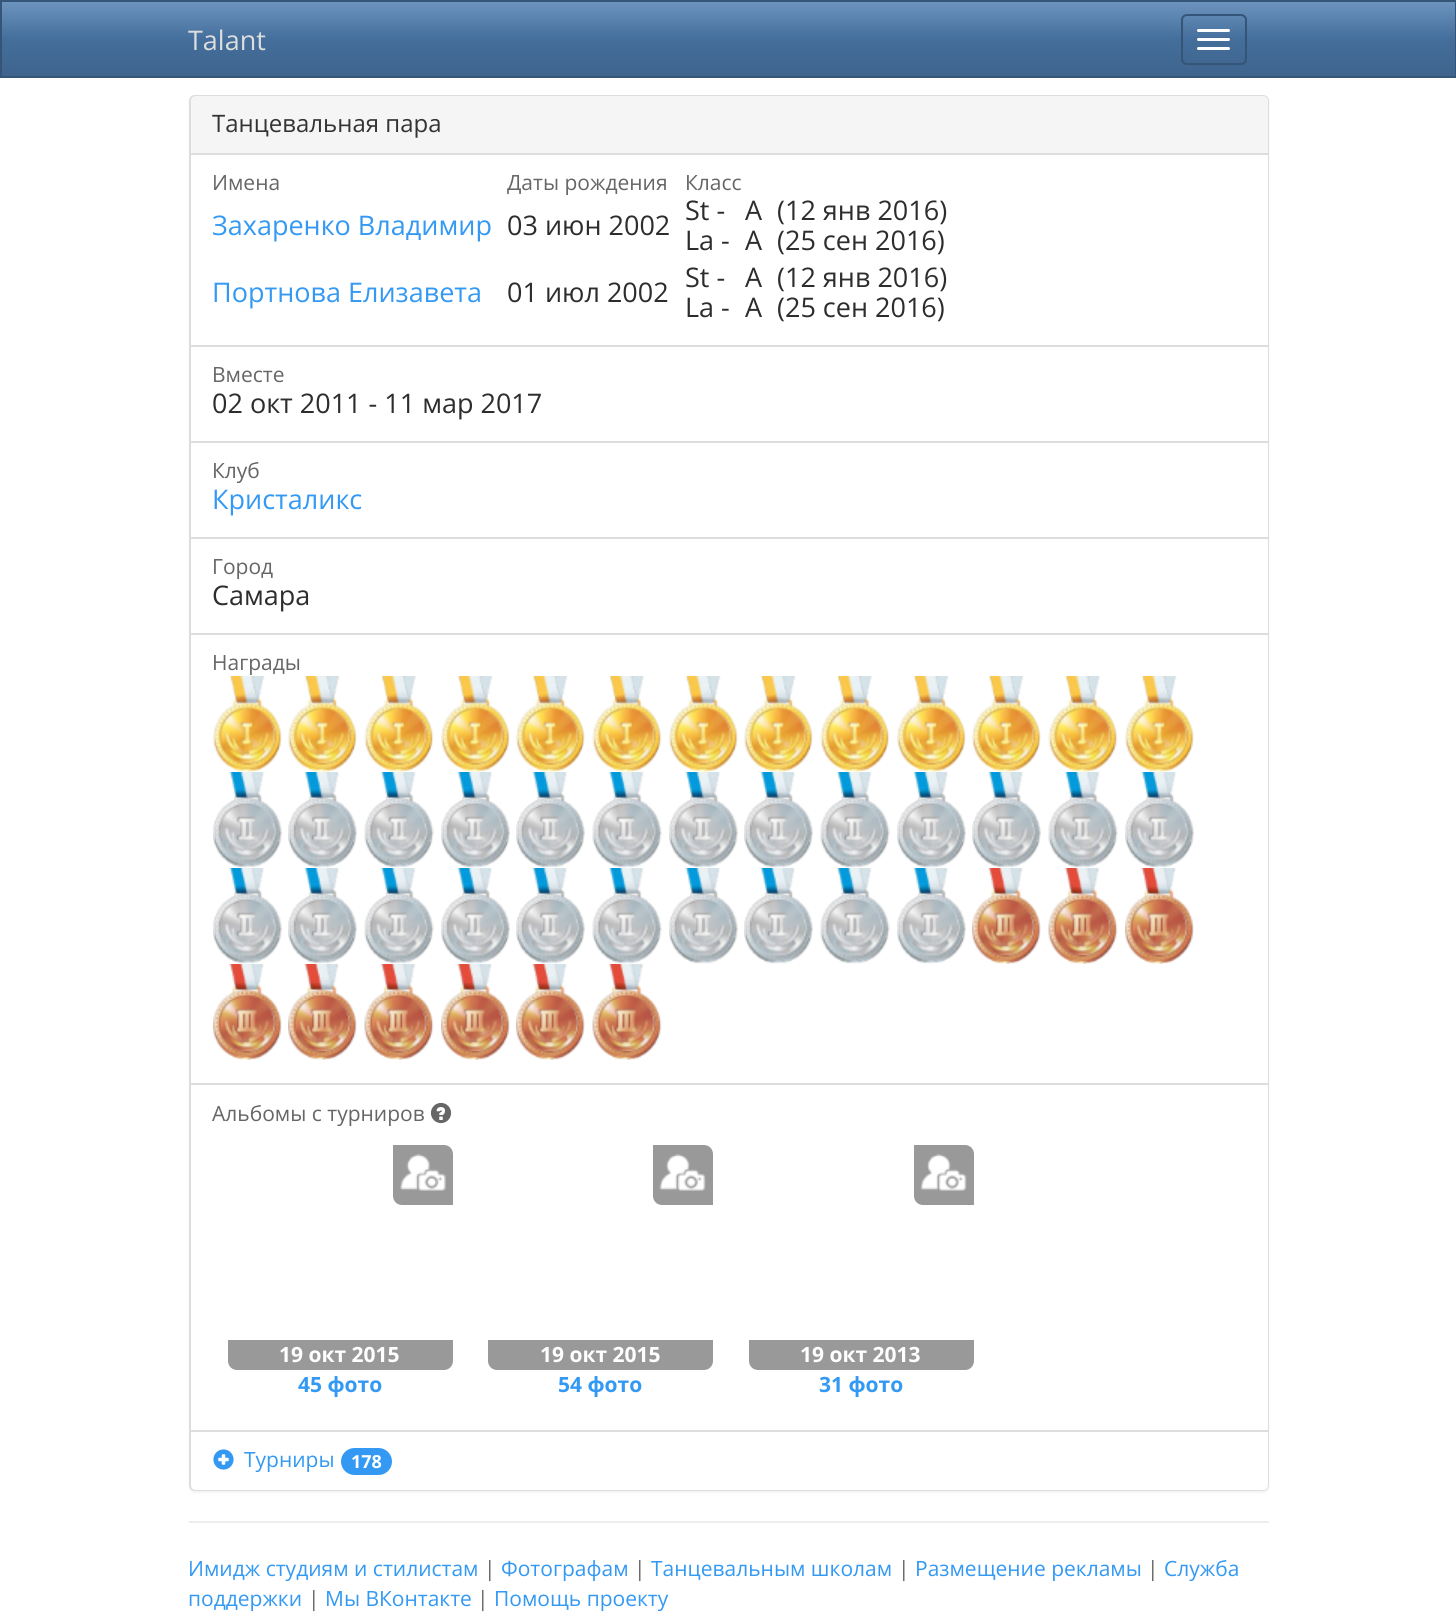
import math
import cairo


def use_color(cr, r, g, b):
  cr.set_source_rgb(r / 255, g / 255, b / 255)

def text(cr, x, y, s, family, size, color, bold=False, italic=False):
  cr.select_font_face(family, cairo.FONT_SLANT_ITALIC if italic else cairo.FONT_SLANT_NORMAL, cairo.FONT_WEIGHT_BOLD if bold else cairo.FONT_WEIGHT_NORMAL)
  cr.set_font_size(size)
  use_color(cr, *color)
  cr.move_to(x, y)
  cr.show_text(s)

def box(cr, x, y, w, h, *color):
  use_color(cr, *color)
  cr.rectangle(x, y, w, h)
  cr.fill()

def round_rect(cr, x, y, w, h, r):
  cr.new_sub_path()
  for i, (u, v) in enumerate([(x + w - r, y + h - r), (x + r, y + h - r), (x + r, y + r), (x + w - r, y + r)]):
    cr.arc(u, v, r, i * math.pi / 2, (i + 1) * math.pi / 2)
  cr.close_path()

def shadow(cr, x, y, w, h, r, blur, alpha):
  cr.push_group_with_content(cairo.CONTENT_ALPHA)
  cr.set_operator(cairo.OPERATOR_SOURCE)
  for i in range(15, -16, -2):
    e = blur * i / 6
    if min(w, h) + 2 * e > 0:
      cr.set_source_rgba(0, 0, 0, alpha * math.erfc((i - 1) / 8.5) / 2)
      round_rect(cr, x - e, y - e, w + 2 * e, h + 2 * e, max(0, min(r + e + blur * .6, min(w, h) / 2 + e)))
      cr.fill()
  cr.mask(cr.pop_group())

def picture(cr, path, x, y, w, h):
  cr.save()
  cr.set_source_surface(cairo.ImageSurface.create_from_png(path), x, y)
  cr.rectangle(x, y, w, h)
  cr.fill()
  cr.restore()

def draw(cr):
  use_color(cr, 255, 255, 255)
  cr.paint()
  gradient = cairo.LinearGradient(728, 1.5, 728, 77)
  gradient.add_color_stop_rgba(0, 0.427, 0.58, 0.749, 1)
  gradient.add_color_stop_rgba(0.5, 0.267, 0.431, 0.608, 1)
  gradient.add_color_stop_rgba(1, 0.243, 0.392, 0.553, 1)
  cr.set_source(gradient)
  cr.rectangle(2, 2, 1453, 74)
  cr.fill()
  cr.rectangle(1, 1, 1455, 76)
  use_color(cr, 52, 85, 120)
  cr.stroke()
  round_rect(cr, 1182, 15, 64, 49, 5)
  cr.stroke()
  use_color(cr, 255, 255, 255)
  round_rect(cr, 1197, 29, 33, 3, 1.5)
  cr.fill()
  round_rect(cr, 1197, 38, 33, 3, 1.5)
  cr.fill()
  round_rect(cr, 1197, 47, 33, 3, 1.5)
  cr.fill()
  use_color(cr, 0, 0, 0)
  shadow(cr, 189, 96, 1080, 1397, 6, 1, 0.05)
  round_rect(cr, 190, 96, 1078, 1394, 5)
  use_color(cr, 221, 221, 221)
  cr.stroke()
  use_color(cr, 245, 245, 245)
  cr.new_path()
  cr.move_to(196, 96)
  cr.line_to(1263, 96)
  cr.curve_to(1266, 96, 1268, 98, 1268, 101)
  cr.line_to(1268, 155)
  cr.line_to(191, 155)
  cr.line_to(191, 101)
  cr.curve_to(191, 98, 193, 96, 196, 96)
  cr.close_path()
  cr.fill()
  box(cr, 191, 153, 1077, 2, 221, 221, 221)
  box(cr, 191, 155, 1077, 190, 255, 255, 255)
  box(cr, 191, 345, 1077, 2, 221, 221, 221)
  box(cr, 191, 347, 1077, 94, 255, 255, 255)
  box(cr, 191, 441, 1077, 2, 221, 221, 221)
  box(cr, 191, 443, 1077, 94, 255, 255, 255)
  box(cr, 191, 537, 1077, 2, 221, 221, 221)
  box(cr, 191, 539, 1077, 94, 255, 255, 255)
  box(cr, 191, 633, 1077, 2, 221, 221, 221)
  box(cr, 191, 635, 1077, 448, 255, 255, 255)
  box(cr, 191, 1083, 1077, 2, 221, 221, 221)
  picture(cr, "img_01.png", 213, 676, 69, 96)
  picture(cr, "img_02.png", 288, 676, 69, 96)
  picture(cr, "img_03.png", 364, 676, 70, 96)
  picture(cr, "img_04.png", 441, 676, 69, 96)
  picture(cr, "img_01.png", 516, 676, 69, 96)
  picture(cr, "img_03.png", 592, 676, 70, 96)
  picture(cr, "img_01.png", 669, 676, 69, 96)
  picture(cr, "img_05.png", 744, 676, 69, 96)
  picture(cr, "img_06.png", 820, 676, 70, 96)
  picture(cr, "img_01.png", 897, 676, 69, 96)
  picture(cr, "img_01.png", 972, 676, 69, 96)
  picture(cr, "img_07.png", 1048, 676, 70, 96)
  picture(cr, "img_04.png", 1125, 676, 69, 96)
  picture(cr, "img_08.png", 213, 772, 69, 96)
  picture(cr, "img_09.png", 288, 772, 69, 96)
  picture(cr, "img_10.png", 364, 772, 70, 96)
  picture(cr, "img_11.png", 441, 772, 69, 96)
  picture(cr, "img_08.png", 516, 772, 69, 96)
  picture(cr, "img_10.png", 592, 772, 70, 96)
  picture(cr, "img_08.png", 669, 772, 69, 96)
  picture(cr, "img_12.png", 744, 772, 69, 96)
  picture(cr, "img_13.png", 820, 772, 70, 96)
  picture(cr, "img_08.png", 897, 772, 69, 96)
  picture(cr, "img_08.png", 972, 772, 69, 96)
  picture(cr, "img_14.png", 1048, 772, 70, 96)
  picture(cr, "img_11.png", 1125, 772, 69, 96)
  picture(cr, "img_08.png", 213, 868, 69, 96)
  picture(cr, "img_09.png", 288, 868, 69, 96)
  picture(cr, "img_10.png", 364, 868, 70, 96)
  picture(cr, "img_11.png", 441, 868, 69, 96)
  picture(cr, "img_08.png", 516, 868, 69, 96)
  picture(cr, "img_10.png", 592, 868, 70, 96)
  picture(cr, "img_08.png", 669, 868, 69, 96)
  picture(cr, "img_12.png", 744, 868, 69, 96)
  picture(cr, "img_13.png", 820, 868, 70, 96)
  picture(cr, "img_08.png", 897, 868, 69, 96)
  picture(cr, "img_15.png", 972, 868, 69, 96)
  picture(cr, "img_16.png", 1048, 868, 70, 96)
  picture(cr, "img_17.png", 1125, 868, 69, 96)
  picture(cr, "img_15.png", 213, 964, 69, 96)
  picture(cr, "img_18.png", 288, 964, 69, 96)
  picture(cr, "img_19.png", 364, 964, 70, 96)
  picture(cr, "img_17.png", 441, 964, 69, 96)
  picture(cr, "img_15.png", 516, 964, 69, 96)
  picture(cr, "img_19.png", 592, 964, 70, 96)
  box(cr, 191, 1085, 1077, 345, 255, 255, 255)
  picture(cr, "img_20.png", 430, 1102, 22, 22)
  use_color(cr, 153, 153, 153)
  cr.new_path()
  cr.move_to(393, 1145)
  cr.line_to(444, 1145)
  cr.curve_to(449, 1145, 453, 1149, 453, 1154)
  cr.line_to(453, 1205)
  cr.line_to(402, 1205)
  cr.curve_to(397, 1205, 393, 1201, 393, 1196)
  cr.close_path()
  cr.fill()
  picture(cr, "img_21.png", 400, 1154, 46, 37)
  cr.new_path()
  cr.move_to(228, 1340)
  cr.line_to(453, 1340)
  cr.line_to(453, 1361)
  cr.curve_to(453, 1366, 449, 1370, 444, 1370)
  cr.line_to(237, 1370)
  cr.curve_to(232, 1370, 228, 1366, 228, 1361)
  cr.close_path()
  cr.fill()
  cr.new_path()
  cr.move_to(653, 1145)
  cr.line_to(704, 1145)
  cr.curve_to(709, 1145, 713, 1149, 713, 1154)
  cr.line_to(713, 1205)
  cr.line_to(662, 1205)
  cr.curve_to(657, 1205, 653, 1201, 653, 1196)
  cr.close_path()
  cr.fill()
  picture(cr, "img_22.png", 659, 1154, 47, 37)
  cr.new_path()
  cr.move_to(488, 1340)
  cr.line_to(713, 1340)
  cr.line_to(713, 1361)
  cr.curve_to(713, 1366, 709, 1370, 704, 1370)
  cr.line_to(497, 1370)
  cr.curve_to(492, 1370, 488, 1366, 488, 1361)
  cr.close_path()
  cr.fill()
  cr.new_path()
  cr.move_to(914, 1145)
  cr.line_to(965, 1145)
  cr.curve_to(970, 1145, 974, 1149, 974, 1154)
  cr.line_to(974, 1205)
  cr.line_to(923, 1205)
  cr.curve_to(918, 1205, 914, 1201, 914, 1196)
  cr.close_path()
  cr.fill()
  picture(cr, "img_23.png", 920, 1154, 47, 37)
  cr.new_path()
  cr.move_to(749, 1340)
  cr.line_to(974, 1340)
  cr.line_to(974, 1361)
  cr.curve_to(974, 1366, 970, 1370, 965, 1370)
  cr.line_to(758, 1370)
  cr.curve_to(753, 1370, 749, 1366, 749, 1361)
  cr.close_path()
  cr.fill()
  use_color(cr, 255, 255, 255)
  cr.new_path()
  cr.move_to(191, 1430)
  cr.line_to(1268, 1430)
  cr.line_to(1268, 1485)
  cr.curve_to(1268, 1488, 1266, 1490, 1263, 1490)
  cr.line_to(196, 1490)
  cr.curve_to(193, 1490, 191, 1488, 191, 1485)
  cr.close_path()
  cr.fill()
  box(cr, 191, 1430, 1077, 2, 221, 221, 221)
  picture(cr, "img_24.png", 213, 1449, 21, 21)
  use_color(cr, 51, 153, 243)
  round_rect(cr, 341, 1448, 51, 27, 13.5)
  cr.fill()
  box(cr, 189, 1521, 1080, 2, 238, 238, 238)
  text(cr, 188, 50, "Talant", "Open Sans", 27, (221, 221, 221))
  text(cr, 212, 132, "Танцевальная пара", "Open Sans", 24, (51, 51, 51))
  text(cr, 212, 190, "Имена", "Open Sans", 21, (102, 102, 102))
  text(cr, 507, 190, "Даты рождения", "Open Sans", 21, (102, 102, 102))
  text(cr, 685, 190, "Класс", "Open Sans", 21, (102, 102, 102))
  text(cr, 212, 235, "Захаренко Владимир", "Open Sans", 27, (51, 153, 243))
  text(cr, 507, 235, "03 июн 2002", "Open Sans", 27, (45, 45, 45))
  text(cr, 685, 220, "St -", "Open Sans", 27, (45, 45, 45))
  text(cr, 745, 220, "A", "Open Sans", 27, (45, 45, 45))
  text(cr, 777, 220, "(12 янв 2016)", "Open Sans", 27, (45, 45, 45))
  text(cr, 685, 250, "La -", "Open Sans", 27, (45, 45, 45))
  text(cr, 745, 250, "A", "Open Sans", 27, (45, 45, 45))
  text(cr, 777, 250, "(25 сен 2016)", "Open Sans", 27, (45, 45, 45))
  text(cr, 212, 302, "Портнова Елизавета", "Open Sans", 27, (51, 153, 243))
  text(cr, 507, 302, "01 июл 2002", "Open Sans", 27, (45, 45, 45))
  text(cr, 685, 287, "St -", "Open Sans", 27, (45, 45, 45))
  text(cr, 745, 287, "A", "Open Sans", 27, (45, 45, 45))
  text(cr, 777, 287, "(12 янв 2016)", "Open Sans", 27, (45, 45, 45))
  text(cr, 685, 317, "La -", "Open Sans", 27, (45, 45, 45))
  text(cr, 745, 317, "A", "Open Sans", 27, (45, 45, 45))
  text(cr, 777, 317, "(25 сен 2016)", "Open Sans", 27, (45, 45, 45))
  text(cr, 212, 382, "Вместе", "Open Sans", 21, (102, 102, 102))
  text(cr, 212, 413, "02 окт 2011 - 11 мар 2017", "Open Sans", 27, (45, 45, 45))
  text(cr, 212, 478, "Клуб", "Open Sans", 21, (102, 102, 102))
  text(cr, 212, 509, "Кристаликс", "Open Sans", 27, (51, 153, 243))
  text(cr, 212, 574, "Город", "Open Sans", 21, (102, 102, 102))
  text(cr, 212, 605, "Самара", "Open Sans", 27, (45, 45, 45))
  text(cr, 212, 670, "Награды", "Open Sans", 21, (102, 102, 102))
  text(cr, 212, 1121, "Альбомы с турниров", "Open Sans", 21, (102, 102, 102))
  text(cr, 279, 1362, "19 окт 2015", "Open Sans", 21, (255, 255, 255), bold=True)
  text(cr, 298, 1392, "45 фото", "Open Sans", 21, (51, 153, 243), bold=True)
  text(cr, 540, 1362, "19 окт 2015", "Open Sans", 21, (255, 255, 255), bold=True)
  text(cr, 558, 1392, "54 фото", "Open Sans", 21, (51, 153, 243), bold=True)
  text(cr, 800, 1362, "19 окт 2013", "Open Sans", 21, (255, 255, 255), bold=True)
  text(cr, 819, 1392, "31 фото", "Open Sans", 21, (51, 153, 243), bold=True)
  text(cr, 244, 1467, "Турниры", "Open Sans", 21, (51, 153, 243))
  text(cr, 351, 1468, "178", "Open Sans", 18, (255, 255, 255), bold=True)
  text(cr, 188, 1576, "Имидж студиям и стилистам", "Open Sans", 21, (51, 153, 243))
  text(cr, 484, 1576, "|", "Open Sans", 21, (102, 102, 102))
  text(cr, 501, 1576, "Фотографам", "Open Sans", 21, (51, 153, 243))
  text(cr, 634, 1576, "|", "Open Sans", 21, (102, 102, 102))
  text(cr, 651, 1576, "Танцевальным школам", "Open Sans", 21, (51, 153, 243))
  text(cr, 898, 1576, "|", "Open Sans", 21, (102, 102, 102))
  text(cr, 915, 1576, "Размещение рекламы", "Open Sans", 21, (51, 153, 243))
  text(cr, 1147, 1576, "|", "Open Sans", 21, (102, 102, 102))
  text(cr, 1164, 1576, "Служба", "Open Sans", 21, (51, 153, 243))
  text(cr, 188, 1606, "поддержки", "Open Sans", 21, (51, 153, 243))
  text(cr, 308, 1606, "|", "Open Sans", 21, (102, 102, 102))
  text(cr, 325, 1606, "Мы ВКонтакте", "Open Sans", 21, (51, 153, 243))
  text(cr, 477, 1606, "|", "Open Sans", 21, (102, 102, 102))
  text(cr, 494, 1606, "Помощь проекту", "Open Sans", 21, (51, 153, 243))


surface = cairo.ImageSurface(cairo.FORMAT_RGB24, 1456, 1618)
cr = cairo.Context(surface)
options = cairo.FontOptions()
options.set_hint_metrics(cairo.HINT_METRICS_OFF)
options.set_hint_style(cairo.HINT_STYLE_NONE)
cr.set_font_options(options)
cr.set_miter_limit(4)
draw(cr)
surface.write_to_png("out.png")
